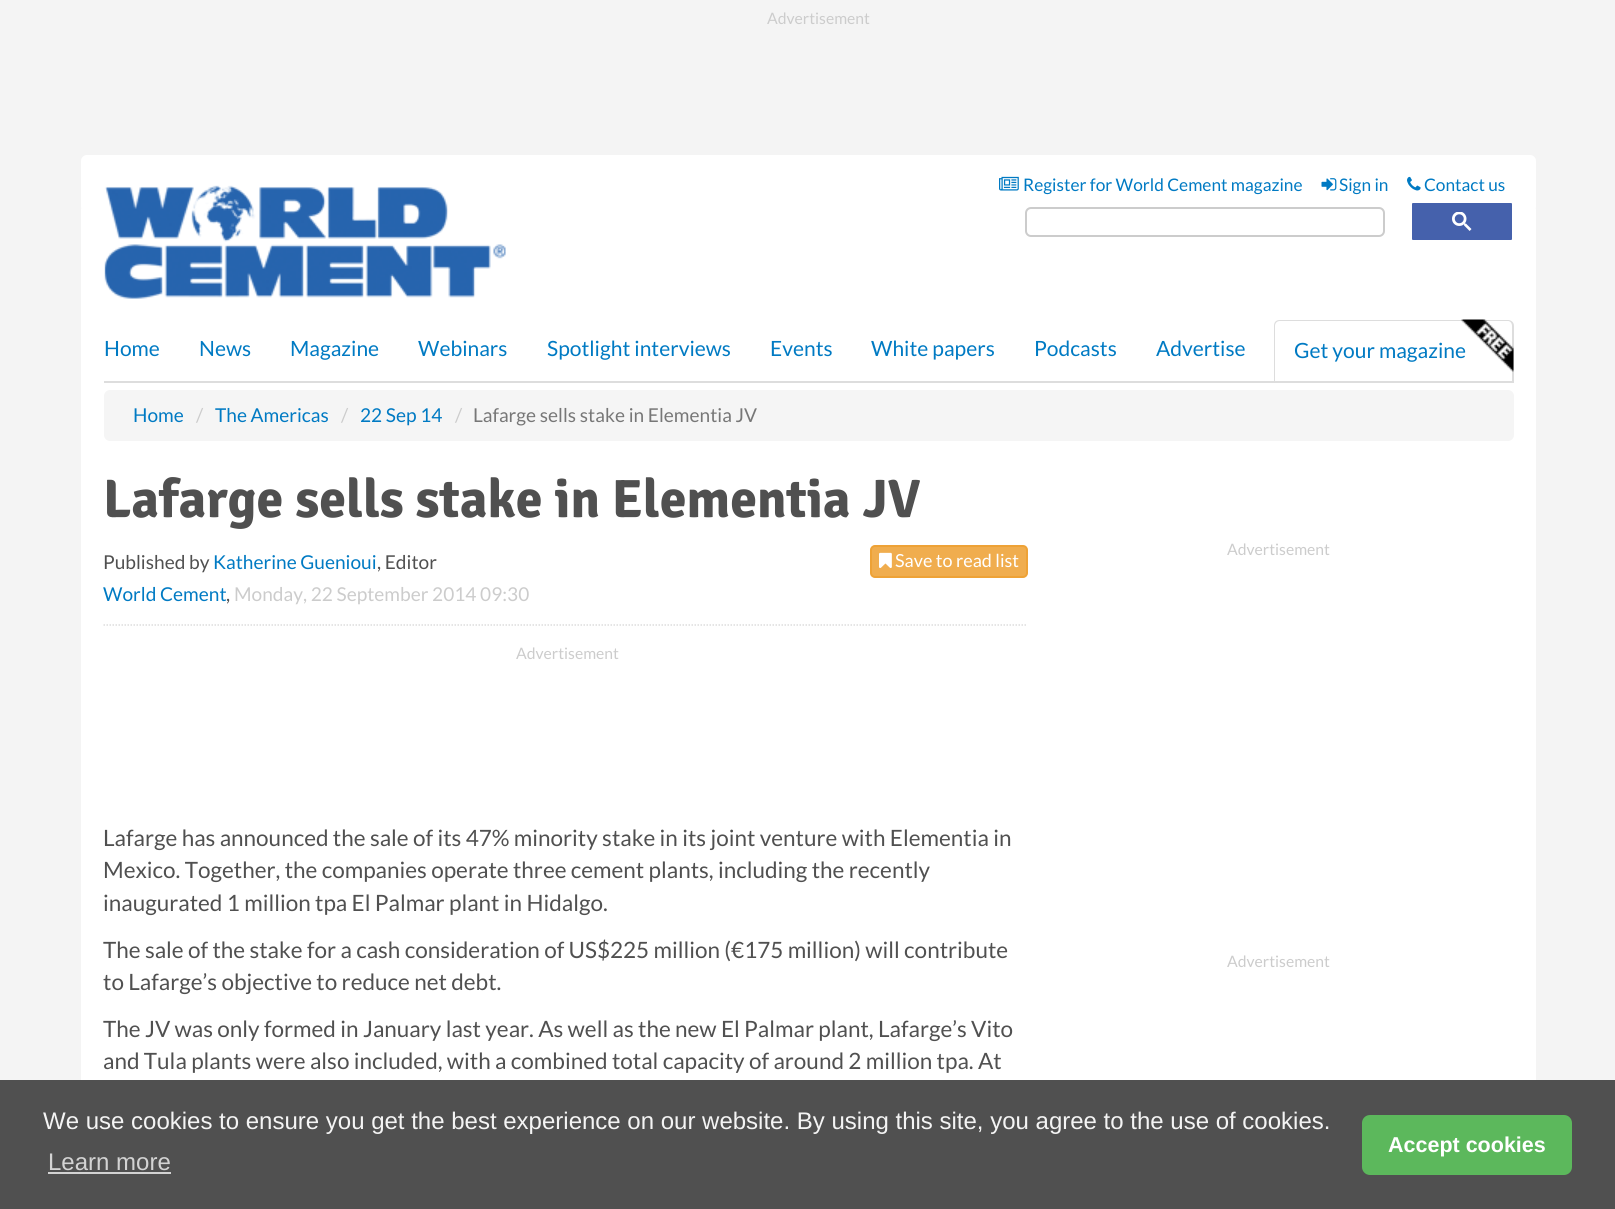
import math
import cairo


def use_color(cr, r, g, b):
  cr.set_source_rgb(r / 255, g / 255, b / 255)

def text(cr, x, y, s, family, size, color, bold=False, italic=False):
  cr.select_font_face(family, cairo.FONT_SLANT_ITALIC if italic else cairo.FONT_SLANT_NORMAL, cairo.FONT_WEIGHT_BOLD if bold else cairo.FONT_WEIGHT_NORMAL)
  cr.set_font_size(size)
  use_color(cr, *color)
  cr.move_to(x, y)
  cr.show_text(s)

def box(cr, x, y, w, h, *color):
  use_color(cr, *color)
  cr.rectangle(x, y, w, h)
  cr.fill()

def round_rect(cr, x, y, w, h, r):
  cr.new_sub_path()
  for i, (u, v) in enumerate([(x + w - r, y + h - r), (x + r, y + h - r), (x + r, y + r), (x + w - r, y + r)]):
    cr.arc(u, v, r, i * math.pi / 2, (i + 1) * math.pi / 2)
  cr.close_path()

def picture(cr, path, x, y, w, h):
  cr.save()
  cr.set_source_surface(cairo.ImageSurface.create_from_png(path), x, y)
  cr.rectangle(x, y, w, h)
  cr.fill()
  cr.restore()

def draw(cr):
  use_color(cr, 244, 244, 244)
  cr.paint()
  use_color(cr, 255, 255, 255)
  round_rect(cr, 81, 155, 1455, 58, 6)
  cr.fill()
  picture(cr, "img_01.png", 999, 176, 20, 15)
  picture(cr, "img_02.png", 1321, 178, 16, 13)
  picture(cr, "img_03.png", 1407, 176, 14, 15)
  box(cr, 81, 209, 1455, 111, 255, 255, 255)
  picture(cr, "img_04.png", 104, 185, 402, 114)
  round_rect(cr, 1026, 208, 358, 28, 5)
  use_color(cr, 204, 204, 204)
  cr.stroke()
  use_color(cr, 69, 97, 172)
  round_rect(cr, 1411, 202, 102, 39, 2)
  cr.fill_preserve()
  use_color(cr, 255, 255, 255)
  cr.stroke()
  picture(cr, "img_05.png", 1452, 212, 20, 19)
  box(cr, 81, 320, 1455, 151, 255, 255, 255)
  box(cr, 104, 381, 1410, 2, 221, 221, 221)
  cr.set_fill_rule(cairo.FILL_RULE_EVEN_ODD)
  cr.new_path()
  cr.move_to(1280, 320)
  cr.line_to(1508, 320)
  cr.curve_to(1511, 320, 1514, 322, 1514, 326)
  cr.line_to(1514, 381)
  cr.line_to(1274, 381)
  cr.line_to(1274, 326)
  cr.curve_to(1274, 322, 1276, 320, 1280, 320)
  cr.close_path()
  cr.move_to(1280, 321)
  cr.line_to(1508, 321)
  cr.curve_to(1510, 321, 1512, 323, 1512, 326)
  cr.line_to(1512, 381)
  cr.line_to(1275, 381)
  cr.line_to(1275, 326)
  cr.curve_to(1275, 323, 1277, 321, 1280, 321)
  cr.close_path()
  cr.fill()
  use_color(cr, 245, 245, 245)
  round_rect(cr, 104, 390, 1410, 51, 6)
  cr.fill()
  use_color(cr, 255, 255, 255)
  round_rect(cr, 81, 465, 1455, 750, 6)
  cr.fill()
  use_color(cr, 240, 173, 78)
  round_rect(cr, 871, 546, 156, 31, 4)
  cr.fill_preserve()
  use_color(cr, 238, 162, 54)
  cr.stroke()
  picture(cr, "img_07.png", 879, 552, 13, 16)
  cr.new_path()
  cr.move_to(103.5, 625)
  cr.line_to(1027.5, 625)
  use_color(cr, 221, 221, 221)
  cr.set_line_width(1.5)
  cr.set_dash([1.5, 1.5])
  cr.stroke()
  box(cr, 0, 1080, 1615, 129, 80, 80, 80)
  box(cr, 48, 1172, 123, 2, 211, 211, 211)
  use_color(cr, 92, 184, 92)
  round_rect(cr, 1362, 1115, 210, 60, 8)
  cr.fill()
  text(cr, 767, 24, "Advertisement", "Lato", 15.75, (204, 204, 204))
  text(cr, 1023, 191, "Register for World Cement magazine", "Lato", 17.3, (0, 122, 195))
  text(cr, 1339, 191, "Sign in", "Lato", 17.3, (0, 122, 195))
  text(cr, 1424, 191, "Contact us", "Lato", 17.3, (0, 122, 195))
  text(cr, 104, 356, "Home", "Lato", 21, (0, 122, 195))
  text(cr, 199, 356, "News", "Lato", 21, (0, 122, 195))
  text(cr, 290, 356, "Magazine", "Lato", 21, (0, 122, 195))
  text(cr, 418, 356, "Webinars", "Lato", 21, (0, 122, 195))
  text(cr, 547, 356, "Spotlight interviews", "Lato", 21, (0, 122, 195))
  text(cr, 770, 356, "Events", "Lato", 21, (0, 122, 195))
  text(cr, 871, 356, "White papers", "Lato", 21, (0, 122, 195))
  text(cr, 1034, 356, "Podcasts", "Lato", 21, (0, 122, 195))
  text(cr, 1156, 356, "Advertise", "Lato", 21, (0, 122, 195))
  text(cr, 1294, 358, "Get your magazine", "Lato", 21, (0, 122, 195))
  picture(cr, "img_06.png", 1461, 319, 53, 53)
  text(cr, 133, 422, "Home", "Lato", 19.1, (0, 122, 195))
  text(cr, 196, 422, "/", "Lato", 19.1, (204, 204, 204))
  text(cr, 215, 422, "The Americas", "Lato", 19.1, (0, 122, 195))
  text(cr, 341, 422, "/", "Lato", 19.1, (204, 204, 204))
  text(cr, 360, 422, "22 Sep 14", "Lato", 19.1, (0, 122, 195))
  text(cr, 455, 422, "/", "Lato", 19.1, (204, 204, 204))
  text(cr, 473, 422, "Lafarge sells stake in Elementia JV", "Lato", 19.1, (119, 119, 119))
  text(cr, 103, 517, "Lafarge sells stake in Elementia JV", "Signika", 54, (80, 80, 80), bold=True)
  text(cr, 103, 569, "Published by", "Lato", 19.1, (80, 80, 80))
  text(cr, 213, 569, "Katherine Guenioui", "Lato", 19.1, (0, 122, 195))
  text(cr, 377, 569, ", Editor", "Lato", 19.1, (80, 80, 80))
  text(cr, 895, 567, "Save to read list", "Lato", 18, (255, 255, 255))
  text(cr, 103, 601, "World Cement", "Lato", 19.1, (0, 122, 195))
  text(cr, 226, 601, ",", "Lato", 19.1, (80, 80, 80))
  text(cr, 234, 601, "Monday, 22 September 2014 09:30", "Lato", 19.1, (204, 204, 204))
  text(cr, 516, 659, "Advertisement", "Lato", 15.75, (204, 204, 204))
  text(cr, 103, 846, "Lafarge has announced the sale of its 47% minority stake in its joint venture with Elementia in", "Lato", 22.5, (80, 80, 80))
  text(cr, 103, 878, "Mexico. Together, the companies operate three cement plants, including the recently", "Lato", 22.5, (80, 80, 80))
  text(cr, 103, 911, "inaugurated 1 million tpa El Palmar plant in Hidalgo.", "Lato", 22.5, (80, 80, 80))
  text(cr, 103, 958, "The sale of the stake for a cash consideration of US$225 million (€175 million) will contribute", "Lato", 22.5, (80, 80, 80))
  text(cr, 103, 990, "to Lafarge’s objective to reduce net debt.", "Lato", 22.5, (80, 80, 80))
  text(cr, 103, 1037, "The JV was only formed in January last year. As well as the new El Palmar plant, Lafarge’s Vito", "Lato", 22.5, (80, 80, 80))
  text(cr, 103, 1069, "and Tula plants were also included, with a combined total capacity of around 2 million tpa. At", "Lato", 22.5, (80, 80, 80))
  text(cr, 1227, 555, "Advertisement", "Lato", 15.75, (204, 204, 204))
  text(cr, 1227, 967, "Advertisement", "Lato", 15.75, (204, 204, 204))
  text(cr, 43, 1129, "We use cookies to ensure you get the best experience on our website. By using this site, you agree to the use of cookies.", "Liberation Sans", 24, (244, 244, 244))
  text(cr, 48, 1170, "Learn more", "Liberation Sans", 24, (211, 211, 211))
  text(cr, 1388, 1152, "Accept cookies", "Liberation Sans", 21.5, (255, 255, 255), bold=True)


surface = cairo.ImageSurface(cairo.FORMAT_RGB24, 1615, 1209)
cr = cairo.Context(surface)
options = cairo.FontOptions()
options.set_hint_metrics(cairo.HINT_METRICS_OFF)
options.set_hint_style(cairo.HINT_STYLE_NONE)
cr.set_font_options(options)
cr.set_miter_limit(4)
draw(cr)
surface.write_to_png("out.png")
